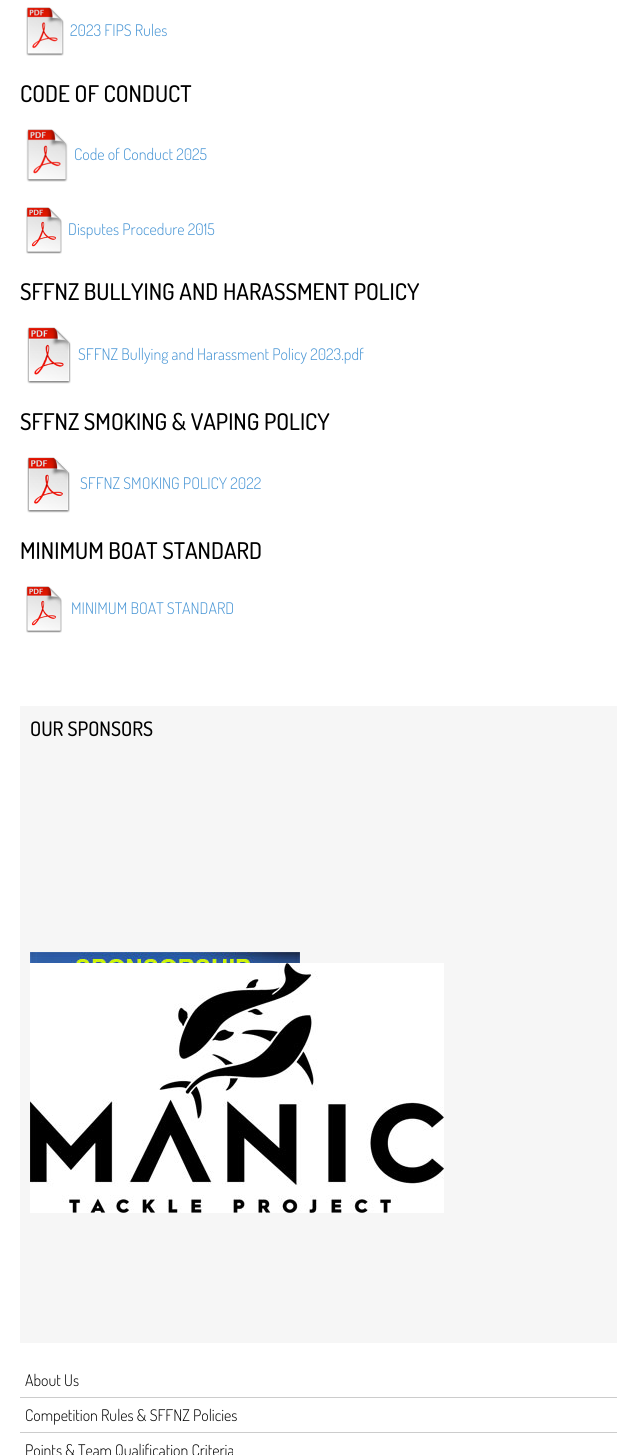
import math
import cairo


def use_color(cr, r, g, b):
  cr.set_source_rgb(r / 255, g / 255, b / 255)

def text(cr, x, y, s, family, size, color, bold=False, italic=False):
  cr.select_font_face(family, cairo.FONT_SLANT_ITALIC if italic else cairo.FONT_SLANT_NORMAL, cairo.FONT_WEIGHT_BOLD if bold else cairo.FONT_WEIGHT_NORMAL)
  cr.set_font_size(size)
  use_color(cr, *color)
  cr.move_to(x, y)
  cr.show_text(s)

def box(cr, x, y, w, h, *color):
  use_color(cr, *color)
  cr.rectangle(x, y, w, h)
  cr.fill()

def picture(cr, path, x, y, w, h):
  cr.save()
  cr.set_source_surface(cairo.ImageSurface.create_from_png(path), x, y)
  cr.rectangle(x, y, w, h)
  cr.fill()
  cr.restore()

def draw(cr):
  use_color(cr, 255, 255, 255)
  cr.paint()
  picture(cr, "img_01.png", 26, 7, 38, 49)
  picture(cr, "img_02.png", 26, 129, 42, 53)
  picture(cr, "img_03.png", 26, 207, 36, 47)
  picture(cr, "img_04.png", 27, 327, 44, 57)
  picture(cr, "img_05.png", 27, 457, 43, 56)
  picture(cr, "img_03.png", 26, 586, 36, 47)
  box(cr, 20, 706, 597, 637, 246, 246, 246)
  picture(cr, "img_06.png", 30, 952, 270, 11)
  picture(cr, "img_07.png", 30, 963, 414, 250)
  box(cr, 20, 1397, 597, 1, 204, 204, 204)
  box(cr, 20, 1432, 597, 1, 204, 204, 204)
  text(cr, 70, 36, "2023 FIPS Rules", "Dosis Light", 16, (70, 148, 212))
  text(cr, 20, 102, "CODE OF CONDUCT", "Dosis Medium", 23, (0, 0, 0))
  text(cr, 74, 160, "Code of Conduct 2025", "Dosis Light", 16, (70, 148, 212))
  text(cr, 68, 235, "Disputes Procedure 2015", "Dosis Light", 16, (70, 148, 212))
  text(cr, 20, 300, "SFFNZ BULLYING AND HARASSMENT POLICY", "Dosis Medium", 23, (0, 0, 0))
  text(cr, 78, 360, "SFFNZ Bullying and Harassment Policy 2023.pdf", "Dosis Light", 16, (70, 148, 212))
  text(cr, 20, 430, "SFFNZ SMOKING & VAPING POLICY", "Dosis Medium", 23, (0, 0, 0))
  text(cr, 80, 489, "SFFNZ SMOKING POLICY 2022", "Dosis Light", 16, (70, 148, 212))
  text(cr, 20, 559, "MINIMUM BOAT STANDARD", "Dosis Medium", 23, (0, 0, 0))
  text(cr, 71, 614, "MINIMUM BOAT STANDARD", "Dosis Light", 16, (70, 148, 212))
  text(cr, 30, 736, "OUR SPONSORS", "Dosis Medium", 20, (0, 0, 0))
  text(cr, 25, 1386, "About Us", "Dosis Light", 16, (0, 0, 0))
  text(cr, 25, 1421, "Competition Rules & SFFNZ Policies", "Dosis Light", 16, (0, 0, 0))
  text(cr, 25, 1456, "Points & Team Qualification Criteria", "Dosis Light", 16, (0, 0, 0))


surface = cairo.ImageSurface(cairo.FORMAT_RGB24, 637, 1455)
cr = cairo.Context(surface)
options = cairo.FontOptions()
options.set_hint_metrics(cairo.HINT_METRICS_OFF)
options.set_hint_style(cairo.HINT_STYLE_NONE)
cr.set_font_options(options)
cr.set_miter_limit(4)
draw(cr)
surface.write_to_png("out.png")
